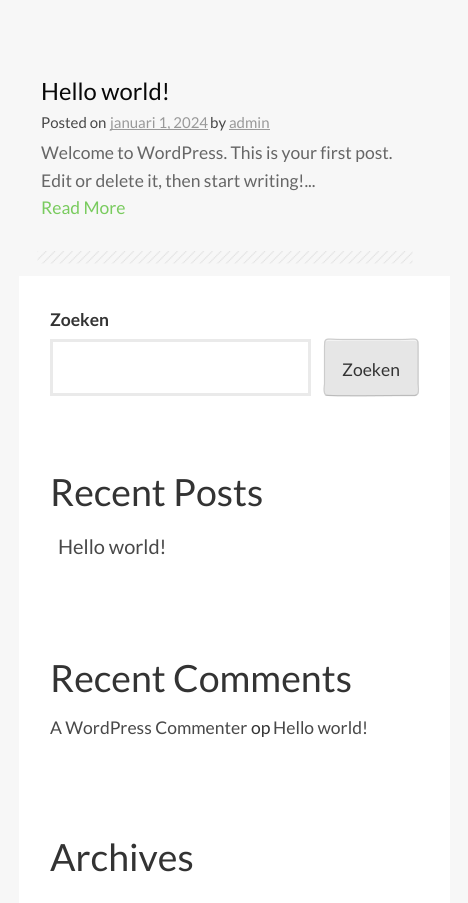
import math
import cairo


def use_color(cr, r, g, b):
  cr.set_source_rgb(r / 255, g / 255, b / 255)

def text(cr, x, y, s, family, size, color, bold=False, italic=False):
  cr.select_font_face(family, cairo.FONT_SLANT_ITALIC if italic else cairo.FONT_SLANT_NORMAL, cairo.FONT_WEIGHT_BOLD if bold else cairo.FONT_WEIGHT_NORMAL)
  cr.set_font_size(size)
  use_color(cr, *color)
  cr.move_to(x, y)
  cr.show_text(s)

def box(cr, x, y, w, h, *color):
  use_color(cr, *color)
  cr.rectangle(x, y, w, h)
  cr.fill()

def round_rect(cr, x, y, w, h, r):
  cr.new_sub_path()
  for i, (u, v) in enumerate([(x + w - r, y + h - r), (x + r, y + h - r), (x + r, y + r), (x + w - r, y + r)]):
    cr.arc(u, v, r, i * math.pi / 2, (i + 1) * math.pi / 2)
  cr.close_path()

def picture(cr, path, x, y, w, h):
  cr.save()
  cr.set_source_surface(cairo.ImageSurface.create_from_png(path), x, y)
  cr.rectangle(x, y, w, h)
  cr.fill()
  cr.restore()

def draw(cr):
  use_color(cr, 247, 247, 247)
  cr.paint()
  box(cr, 110, 129, 98, 1, 153, 153, 153)
  box(cr, 229, 129, 41, 1, 153, 153, 153)
  picture(cr, "img_01.png", 37, 251, 376, 13)
  box(cr, 19, 276, 431, 627, 255, 255, 255)
  cr.rectangle(51.5, 340.5, 258, 54)
  use_color(cr, 234, 234, 234)
  cr.set_line_width(3)
  cr.stroke()
  use_color(cr, 230, 230, 230)
  round_rect(cr, 324, 339, 95, 57, 4)
  cr.fill()
  use_color(cr, 243, 243, 243)
  cr.new_path()
  cr.move_to(328, 341)
  cr.line_to(415, 341)
  cr.curve_to(416, 341, 418, 342, 418, 344)
  cr.curve_to(418, 336, 406, 340, 401, 340)
  cr.line_to(342, 340)
  cr.curve_to(337, 340, 325, 336, 325, 344)
  cr.curve_to(325, 342, 326, 341, 328, 341)
  cr.close_path()
  cr.fill()
  cr.new_path()
  cr.move_to(417, 394.5)
  cr.line_to(415, 395.5)
  cr.line_to(400.5, 395.5)
  cr.curve_to(392.5, 395.5, 327.5, 396.5, 325.5, 395)
  cr.line_to(325.5, 394.5)
  use_color(cr, 187, 187, 187)
  cr.set_line_width(1.2)
  cr.stroke()
  cr.new_path()
  cr.move_to(325.5, 394.5)
  cr.curve_to(323, 392.5, 324.5, 384.5, 324.5, 384)
  cr.line_to(324.5, 351)
  cr.curve_to(324.5, 335.5, 324, 339.5, 342, 339.5)
  cr.line_to(400.5, 339.5)
  cr.curve_to(418.5, 339.5, 418, 335.5, 418, 351)
  cr.line_to(418, 384)
  cr.curve_to(418, 384.5, 419.5, 392.5, 417, 394.5)
  use_color(cr, 204, 204, 204)
  cr.stroke()
  text(cr, 41, 100, "Hello world!", "Lato", 23.75, (8, 8, 8))
  text(cr, 41, 128, "Posted on", "Lato", 15, (72, 72, 72))
  text(cr, 110, 128, "januari 1, 2024", "Lato", 15, (153, 153, 153))
  text(cr, 210, 128, "by", "Lato", 15, (72, 72, 72))
  text(cr, 229, 128, "admin", "Lato", 15, (153, 153, 153))
  text(cr, 41, 159, "Welcome to WordPress. This is your first post.", "Lato", 17.5, (102, 102, 102))
  text(cr, 41, 187, "Edit or delete it, then start writing!...", "Lato", 17.5, (102, 102, 102))
  text(cr, 41, 214, "Read More", "Lato", 17.5, (121, 203, 94))
  text(cr, 50, 326, "Zoeken", "Lato", 17.5, (51, 51, 51), bold=True)
  text(cr, 342, 376, "Zoeken", "Lato", 17.5, (51, 51, 51))
  text(cr, 50, 506, "Recent Posts", "Lato", 37.5, (51, 51, 51))
  text(cr, 58, 554, "Hello world!", "Lato", 20, (72, 72, 72))
  text(cr, 50, 692, "Recent Comments", "Lato", 37.5, (51, 51, 51))
  text(cr, 50, 734, "A WordPress Commenter", "Lato", 17.5, (72, 72, 72))
  text(cr, 251, 734, "op", "Lato", 17.5, (51, 51, 51))
  text(cr, 273, 734, "Hello world!", "Lato", 17.5, (72, 72, 72))
  text(cr, 50, 871, "Archives", "Lato", 37.5, (51, 51, 51))


surface = cairo.ImageSurface(cairo.FORMAT_RGB24, 468, 903)
cr = cairo.Context(surface)
options = cairo.FontOptions()
options.set_hint_metrics(cairo.HINT_METRICS_OFF)
options.set_hint_style(cairo.HINT_STYLE_NONE)
cr.set_font_options(options)
cr.set_miter_limit(4)
draw(cr)
surface.write_to_png("out.png")
